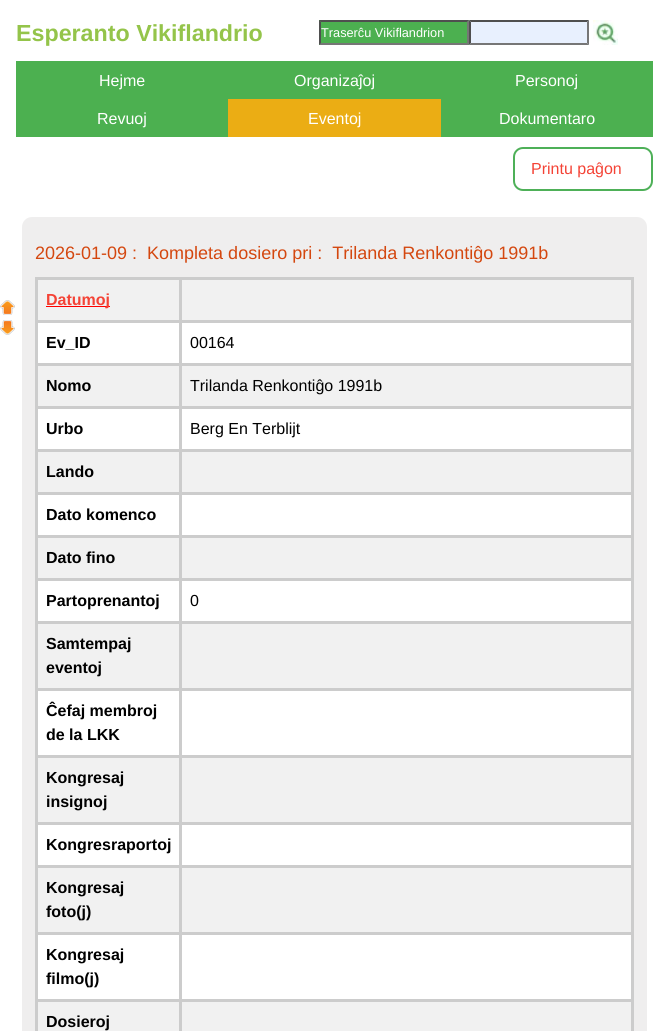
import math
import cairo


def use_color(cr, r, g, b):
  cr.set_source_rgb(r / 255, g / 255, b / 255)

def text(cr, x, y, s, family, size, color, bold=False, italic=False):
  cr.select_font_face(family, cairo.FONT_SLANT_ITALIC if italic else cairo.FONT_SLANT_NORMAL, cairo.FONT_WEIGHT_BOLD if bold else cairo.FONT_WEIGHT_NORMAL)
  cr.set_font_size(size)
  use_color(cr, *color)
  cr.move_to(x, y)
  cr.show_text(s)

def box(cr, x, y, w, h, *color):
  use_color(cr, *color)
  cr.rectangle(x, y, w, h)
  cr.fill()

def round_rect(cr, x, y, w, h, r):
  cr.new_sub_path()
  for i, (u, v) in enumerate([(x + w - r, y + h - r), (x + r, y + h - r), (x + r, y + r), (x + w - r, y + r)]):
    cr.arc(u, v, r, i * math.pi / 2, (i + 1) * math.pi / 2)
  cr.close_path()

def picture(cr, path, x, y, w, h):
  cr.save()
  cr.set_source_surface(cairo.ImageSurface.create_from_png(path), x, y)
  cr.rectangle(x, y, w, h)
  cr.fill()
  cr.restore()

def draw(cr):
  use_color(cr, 255, 255, 255)
  cr.paint()
  box(cr, 319, 20, 150, 25, 76, 176, 80)
  use_color(cr, 79, 79, 79)
  cr.new_path()
  cr.move_to(319, 20)
  cr.line_to(469, 20)
  cr.line_to(467, 22)
  cr.line_to(321, 22)
  cr.close_path()
  cr.fill()
  use_color(cr, 118, 118, 118)
  cr.new_path()
  cr.move_to(469, 20)
  cr.line_to(469, 45)
  cr.line_to(467, 43)
  cr.line_to(467, 22)
  cr.close_path()
  cr.fill()
  cr.new_path()
  cr.move_to(469, 45)
  cr.line_to(319, 45)
  cr.line_to(321, 43)
  cr.line_to(467, 43)
  cr.close_path()
  cr.fill()
  use_color(cr, 79, 79, 79)
  cr.new_path()
  cr.move_to(319, 45)
  cr.line_to(319, 20)
  cr.line_to(321, 22)
  cr.line_to(321, 43)
  cr.close_path()
  cr.fill()
  box(cr, 469, 20, 120, 25, 232, 240, 254)
  use_color(cr, 79, 79, 79)
  cr.new_path()
  cr.move_to(469, 20)
  cr.line_to(589, 20)
  cr.line_to(587, 22)
  cr.line_to(471, 22)
  cr.close_path()
  cr.fill()
  use_color(cr, 118, 118, 118)
  cr.new_path()
  cr.move_to(589, 20)
  cr.line_to(589, 45)
  cr.line_to(587, 43)
  cr.line_to(587, 22)
  cr.close_path()
  cr.fill()
  cr.new_path()
  cr.move_to(589, 45)
  cr.line_to(469, 45)
  cr.line_to(471, 43)
  cr.line_to(587, 43)
  cr.close_path()
  cr.fill()
  use_color(cr, 79, 79, 79)
  cr.new_path()
  cr.move_to(469, 45)
  cr.line_to(469, 20)
  cr.line_to(471, 22)
  cr.line_to(471, 43)
  cr.close_path()
  cr.fill()
  picture(cr, "img_01.png", 593, 20, 25, 25)
  box(cr, 16, 61, 637, 38, 76, 176, 80)
  box(cr, 16, 99, 212, 38, 76, 176, 80)
  box(cr, 228, 99, 213, 38, 235, 173, 20)
  box(cr, 441, 99, 212, 38, 76, 176, 80)
  round_rect(cr, 514, 148, 138, 42, 9)
  use_color(cr, 78, 176, 88)
  cr.stroke()
  picture(cr, "img_02.png", 0, 300, 15, 15)
  picture(cr, "img_03.png", 0, 320, 15, 15)
  use_color(cr, 239, 238, 238)
  round_rect(cr, 22, 217, 625, 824, 10)
  cr.fill()
  box(cr, 38, 280, 593, 40, 241, 241, 241)
  box(cr, 179, 277, 455, 3, 204, 204, 204)
  box(cr, 179, 320, 455, 3, 204, 204, 204)
  box(cr, 38, 323, 593, 40, 255, 255, 255)
  box(cr, 179, 363, 455, 3, 204, 204, 204)
  box(cr, 38, 366, 593, 40, 241, 241, 241)
  box(cr, 179, 406, 455, 3, 204, 204, 204)
  box(cr, 38, 409, 593, 40, 255, 255, 255)
  box(cr, 179, 449, 455, 3, 204, 204, 204)
  box(cr, 38, 452, 593, 40, 241, 241, 241)
  box(cr, 179, 492, 455, 3, 204, 204, 204)
  box(cr, 38, 495, 593, 40, 255, 255, 255)
  box(cr, 179, 535, 455, 3, 204, 204, 204)
  box(cr, 38, 538, 593, 40, 241, 241, 241)
  box(cr, 179, 578, 455, 3, 204, 204, 204)
  box(cr, 38, 581, 593, 40, 255, 255, 255)
  box(cr, 179, 621, 455, 3, 204, 204, 204)
  box(cr, 38, 624, 593, 64, 241, 241, 241)
  box(cr, 179, 688, 455, 3, 204, 204, 204)
  box(cr, 38, 691, 593, 64, 255, 255, 255)
  box(cr, 179, 755, 455, 3, 204, 204, 204)
  box(cr, 38, 758, 593, 64, 241, 241, 241)
  box(cr, 179, 822, 455, 3, 204, 204, 204)
  box(cr, 38, 825, 593, 40, 255, 255, 255)
  box(cr, 179, 865, 455, 3, 204, 204, 204)
  box(cr, 38, 868, 593, 64, 241, 241, 241)
  box(cr, 179, 932, 455, 3, 204, 204, 204)
  box(cr, 38, 935, 593, 64, 255, 255, 255)
  box(cr, 179, 999, 455, 3, 204, 204, 204)
  box(cr, 38, 1002, 593, 29, 241, 241, 241)
  box(cr, 179, 999, 3, 32, 204, 204, 204)
  box(cr, 35, 999, 147, 3, 204, 204, 204)
  box(cr, 179, 932, 3, 70, 204, 204, 204)
  box(cr, 35, 932, 147, 3, 204, 204, 204)
  box(cr, 179, 865, 3, 70, 204, 204, 204)
  box(cr, 35, 865, 147, 3, 204, 204, 204)
  box(cr, 179, 822, 3, 46, 204, 204, 204)
  box(cr, 35, 822, 147, 3, 204, 204, 204)
  box(cr, 179, 755, 3, 70, 204, 204, 204)
  box(cr, 35, 755, 147, 3, 204, 204, 204)
  box(cr, 179, 688, 3, 70, 204, 204, 204)
  box(cr, 35, 688, 147, 3, 204, 204, 204)
  box(cr, 179, 621, 3, 70, 204, 204, 204)
  box(cr, 35, 621, 147, 3, 204, 204, 204)
  box(cr, 179, 578, 3, 46, 204, 204, 204)
  box(cr, 35, 578, 147, 3, 204, 204, 204)
  box(cr, 179, 535, 3, 46, 204, 204, 204)
  box(cr, 35, 535, 147, 3, 204, 204, 204)
  box(cr, 179, 492, 3, 46, 204, 204, 204)
  box(cr, 35, 492, 147, 3, 204, 204, 204)
  box(cr, 179, 449, 3, 46, 204, 204, 204)
  box(cr, 35, 449, 147, 3, 204, 204, 204)
  box(cr, 179, 406, 3, 46, 204, 204, 204)
  box(cr, 35, 406, 147, 3, 204, 204, 204)
  box(cr, 179, 363, 3, 46, 204, 204, 204)
  box(cr, 35, 363, 147, 3, 204, 204, 204)
  box(cr, 179, 320, 3, 46, 204, 204, 204)
  box(cr, 35, 320, 147, 3, 204, 204, 204)
  box(cr, 179, 277, 3, 46, 204, 204, 204)
  box(cr, 35, 277, 147, 3, 204, 204, 204)
  box(cr, 35, 999, 3, 32, 204, 204, 204)
  box(cr, 35, 932, 3, 70, 204, 204, 204)
  box(cr, 35, 865, 3, 70, 204, 204, 204)
  box(cr, 35, 822, 3, 46, 204, 204, 204)
  box(cr, 35, 755, 3, 70, 204, 204, 204)
  box(cr, 35, 688, 3, 70, 204, 204, 204)
  box(cr, 35, 621, 3, 70, 204, 204, 204)
  box(cr, 35, 578, 3, 46, 204, 204, 204)
  box(cr, 35, 535, 3, 46, 204, 204, 204)
  box(cr, 35, 492, 3, 46, 204, 204, 204)
  box(cr, 35, 449, 3, 46, 204, 204, 204)
  box(cr, 35, 406, 3, 46, 204, 204, 204)
  box(cr, 35, 363, 3, 46, 204, 204, 204)
  box(cr, 35, 320, 3, 46, 204, 204, 204)
  box(cr, 35, 277, 3, 46, 204, 204, 204)
  box(cr, 46, 306, 64, 1, 255, 0, 0)
  box(cr, 631, 999, 3, 32, 204, 204, 204)
  box(cr, 631, 932, 3, 70, 204, 204, 204)
  box(cr, 631, 865, 3, 70, 204, 204, 204)
  box(cr, 631, 822, 3, 46, 204, 204, 204)
  box(cr, 631, 755, 3, 70, 204, 204, 204)
  box(cr, 631, 688, 3, 70, 204, 204, 204)
  box(cr, 631, 621, 3, 70, 204, 204, 204)
  box(cr, 631, 578, 3, 46, 204, 204, 204)
  box(cr, 631, 535, 3, 46, 204, 204, 204)
  box(cr, 631, 492, 3, 46, 204, 204, 204)
  box(cr, 631, 449, 3, 46, 204, 204, 204)
  box(cr, 631, 406, 3, 46, 204, 204, 204)
  box(cr, 631, 363, 3, 46, 204, 204, 204)
  box(cr, 631, 320, 3, 46, 204, 204, 204)
  box(cr, 631, 277, 3, 46, 204, 204, 204)
  text(cr, 16, 41, "Esperanto Vikiflandrio", "Liberation Sans", 23.25, (148, 196, 74), bold=True)
  text(cr, 321, 37, "Traserĉu Vikiflandrion", "Liberation Sans", 12.75, (255, 255, 255))
  text(cr, 99, 86, "Hejme", "Liberation Sans", 16, (255, 255, 255))
  text(cr, 294, 86, "Organizaĵoj", "Liberation Sans", 16, (255, 255, 255))
  text(cr, 515, 86, "Personoj", "Liberation Sans", 16, (255, 255, 255))
  text(cr, 97, 124, "Revuoj", "Liberation Sans", 16, (255, 255, 255))
  text(cr, 308, 124, "Eventoj", "Liberation Sans", 16, (255, 255, 255))
  text(cr, 499, 124, "Dokumentaro", "Liberation Sans", 16, (255, 255, 255))
  text(cr, 531, 174, "Printu paĝon", "Liberation Sans", 16, (244, 67, 54))
  text(cr, 35, 259, "2026-01-09 :  Kompleta dosiero pri :  Trilanda Renkontiĝo 1991b", "Liberation Sans", 18, (212, 71, 15))
  text(cr, 46, 305, "Datumoj", "Liberation Sans", 16, (244, 67, 54), bold=True)
  text(cr, 46, 348, "Ev_ID", "Liberation Sans", 16, (0, 0, 0), bold=True)
  text(cr, 190, 348, "00164", "Liberation Sans", 16, (0, 0, 0))
  text(cr, 46, 391, "Nomo", "Liberation Sans", 16, (0, 0, 0), bold=True)
  text(cr, 190, 391, "Trilanda Renkontiĝo 1991b", "Liberation Sans", 16, (0, 0, 0))
  text(cr, 46, 434, "Urbo", "Liberation Sans", 16, (0, 0, 0), bold=True)
  text(cr, 190, 434, "Berg En Terblijt", "Liberation Sans", 16, (0, 0, 0))
  text(cr, 46, 477, "Lando", "Liberation Sans", 16, (0, 0, 0), bold=True)
  text(cr, 46, 520, "Dato komenco", "Liberation Sans", 16, (0, 0, 0), bold=True)
  text(cr, 46, 563, "Dato fino", "Liberation Sans", 16, (0, 0, 0), bold=True)
  text(cr, 46, 606, "Partoprenantoj", "Liberation Sans", 16, (0, 0, 0), bold=True)
  text(cr, 190, 606, "0", "Liberation Sans", 16, (0, 0, 0))
  text(cr, 46, 649, "Samtempaj", "Liberation Sans", 16, (0, 0, 0), bold=True)
  text(cr, 46, 673, "eventoj", "Liberation Sans", 16, (0, 0, 0), bold=True)
  text(cr, 46, 716, "Ĉefaj membroj", "Liberation Sans", 16, (0, 0, 0), bold=True)
  text(cr, 46, 740, "de la LKK", "Liberation Sans", 16, (0, 0, 0), bold=True)
  text(cr, 46, 783, "Kongresaj", "Liberation Sans", 16, (0, 0, 0), bold=True)
  text(cr, 46, 807, "insignoj", "Liberation Sans", 16, (0, 0, 0), bold=True)
  text(cr, 46, 850, "Kongresraportoj", "Liberation Sans", 16, (0, 0, 0), bold=True)
  text(cr, 46, 893, "Kongresaj", "Liberation Sans", 16, (0, 0, 0), bold=True)
  text(cr, 46, 917, "foto(j)", "Liberation Sans", 16, (0, 0, 0), bold=True)
  text(cr, 46, 960, "Kongresaj", "Liberation Sans", 16, (0, 0, 0), bold=True)
  text(cr, 46, 984, "filmo(j)", "Liberation Sans", 16, (0, 0, 0), bold=True)
  text(cr, 46, 1027, "Dosieroj", "Liberation Sans", 16, (0, 0, 0), bold=True)


surface = cairo.ImageSurface(cairo.FORMAT_RGB24, 669, 1031)
cr = cairo.Context(surface)
options = cairo.FontOptions()
options.set_hint_metrics(cairo.HINT_METRICS_OFF)
options.set_hint_style(cairo.HINT_STYLE_NONE)
cr.set_font_options(options)
cr.set_miter_limit(4)
draw(cr)
surface.write_to_png("out.png")
